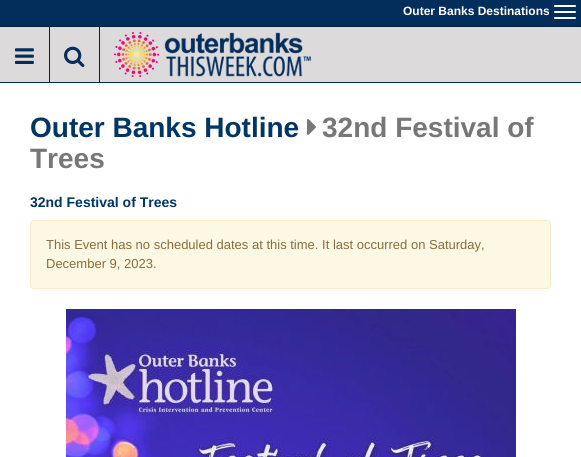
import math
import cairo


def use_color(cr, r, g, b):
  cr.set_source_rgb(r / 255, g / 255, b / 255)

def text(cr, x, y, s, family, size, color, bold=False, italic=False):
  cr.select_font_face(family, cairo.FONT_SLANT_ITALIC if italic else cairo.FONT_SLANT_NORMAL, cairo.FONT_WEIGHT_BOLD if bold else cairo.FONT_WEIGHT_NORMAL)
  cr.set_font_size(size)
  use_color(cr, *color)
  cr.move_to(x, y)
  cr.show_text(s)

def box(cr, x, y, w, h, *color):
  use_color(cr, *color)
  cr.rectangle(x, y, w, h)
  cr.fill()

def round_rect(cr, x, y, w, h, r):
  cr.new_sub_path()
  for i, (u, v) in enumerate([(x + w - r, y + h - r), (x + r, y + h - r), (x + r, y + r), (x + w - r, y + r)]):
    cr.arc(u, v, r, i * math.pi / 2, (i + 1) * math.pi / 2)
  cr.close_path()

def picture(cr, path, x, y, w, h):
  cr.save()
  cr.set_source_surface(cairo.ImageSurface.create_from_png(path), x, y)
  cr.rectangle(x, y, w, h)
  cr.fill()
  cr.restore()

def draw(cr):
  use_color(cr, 255, 255, 255)
  cr.paint()
  box(cr, 0, 0, 581, 26, 3, 45, 91)
  use_color(cr, 255, 255, 255)
  round_rect(cr, 554, 5, 22, 2, 1)
  cr.fill()
  round_rect(cr, 554, 11, 22, 2, 1)
  cr.fill()
  round_rect(cr, 554, 17, 22, 2, 1)
  cr.fill()
  box(cr, 0, 27, 581, 55, 220, 218, 219)
  box(cr, 0, 26, 581, 1, 0, 35, 65)
  box(cr, 0, 82, 581, 1, 0, 35, 65)
  box(cr, 49, 27, 1, 55, 0, 35, 65)
  picture(cr, "img_01.png", 15, 48, 19, 16)
  box(cr, 99, 27, 1, 55, 0, 35, 65)
  picture(cr, "img_02.png", 64, 46, 21, 22)
  picture(cr, "img_03.png", 114, 32, 197, 45)
  picture(cr, "img_04.png", 307, 119, 9, 16)
  use_color(cr, 252, 248, 227)
  round_rect(cr, 30.5, 220.5, 520, 68, 3.5)
  cr.fill_preserve()
  use_color(cr, 250, 235, 204)
  cr.set_line_width(1)
  cr.stroke()
  picture(cr, "img_05.png", 66, 309, 450, 148)
  text(cr, 403, 15, "Outer Banks Destinations", "Liberation Sans", 12, (255, 255, 255), bold=True)
  text(cr, 30, 137, "Outer Banks Hotline", "Liberation Sans", 28, (0, 54, 100), bold=True)
  text(cr, 322, 137, "32nd Festival of", "Liberation Sans", 28, (119, 119, 119), bold=True)
  text(cr, 30, 168, "Trees", "Liberation Sans", 28, (119, 119, 119), bold=True)
  text(cr, 30, 207, "32nd Festival of Trees", "Liberation Sans", 14, (0, 54, 100), bold=True)
  text(cr, 46, 249, "This Event has no scheduled dates at this time. It last occurred on Saturday,", "Liberation Sans", 13, (138, 109, 59))
  text(cr, 46, 268, "December 9, 2023.", "Liberation Sans", 13, (138, 109, 59))


surface = cairo.ImageSurface(cairo.FORMAT_RGB24, 581, 457)
cr = cairo.Context(surface)
options = cairo.FontOptions()
options.set_hint_metrics(cairo.HINT_METRICS_OFF)
options.set_hint_style(cairo.HINT_STYLE_NONE)
cr.set_font_options(options)
cr.set_miter_limit(4)
draw(cr)
surface.write_to_png("out.png")
